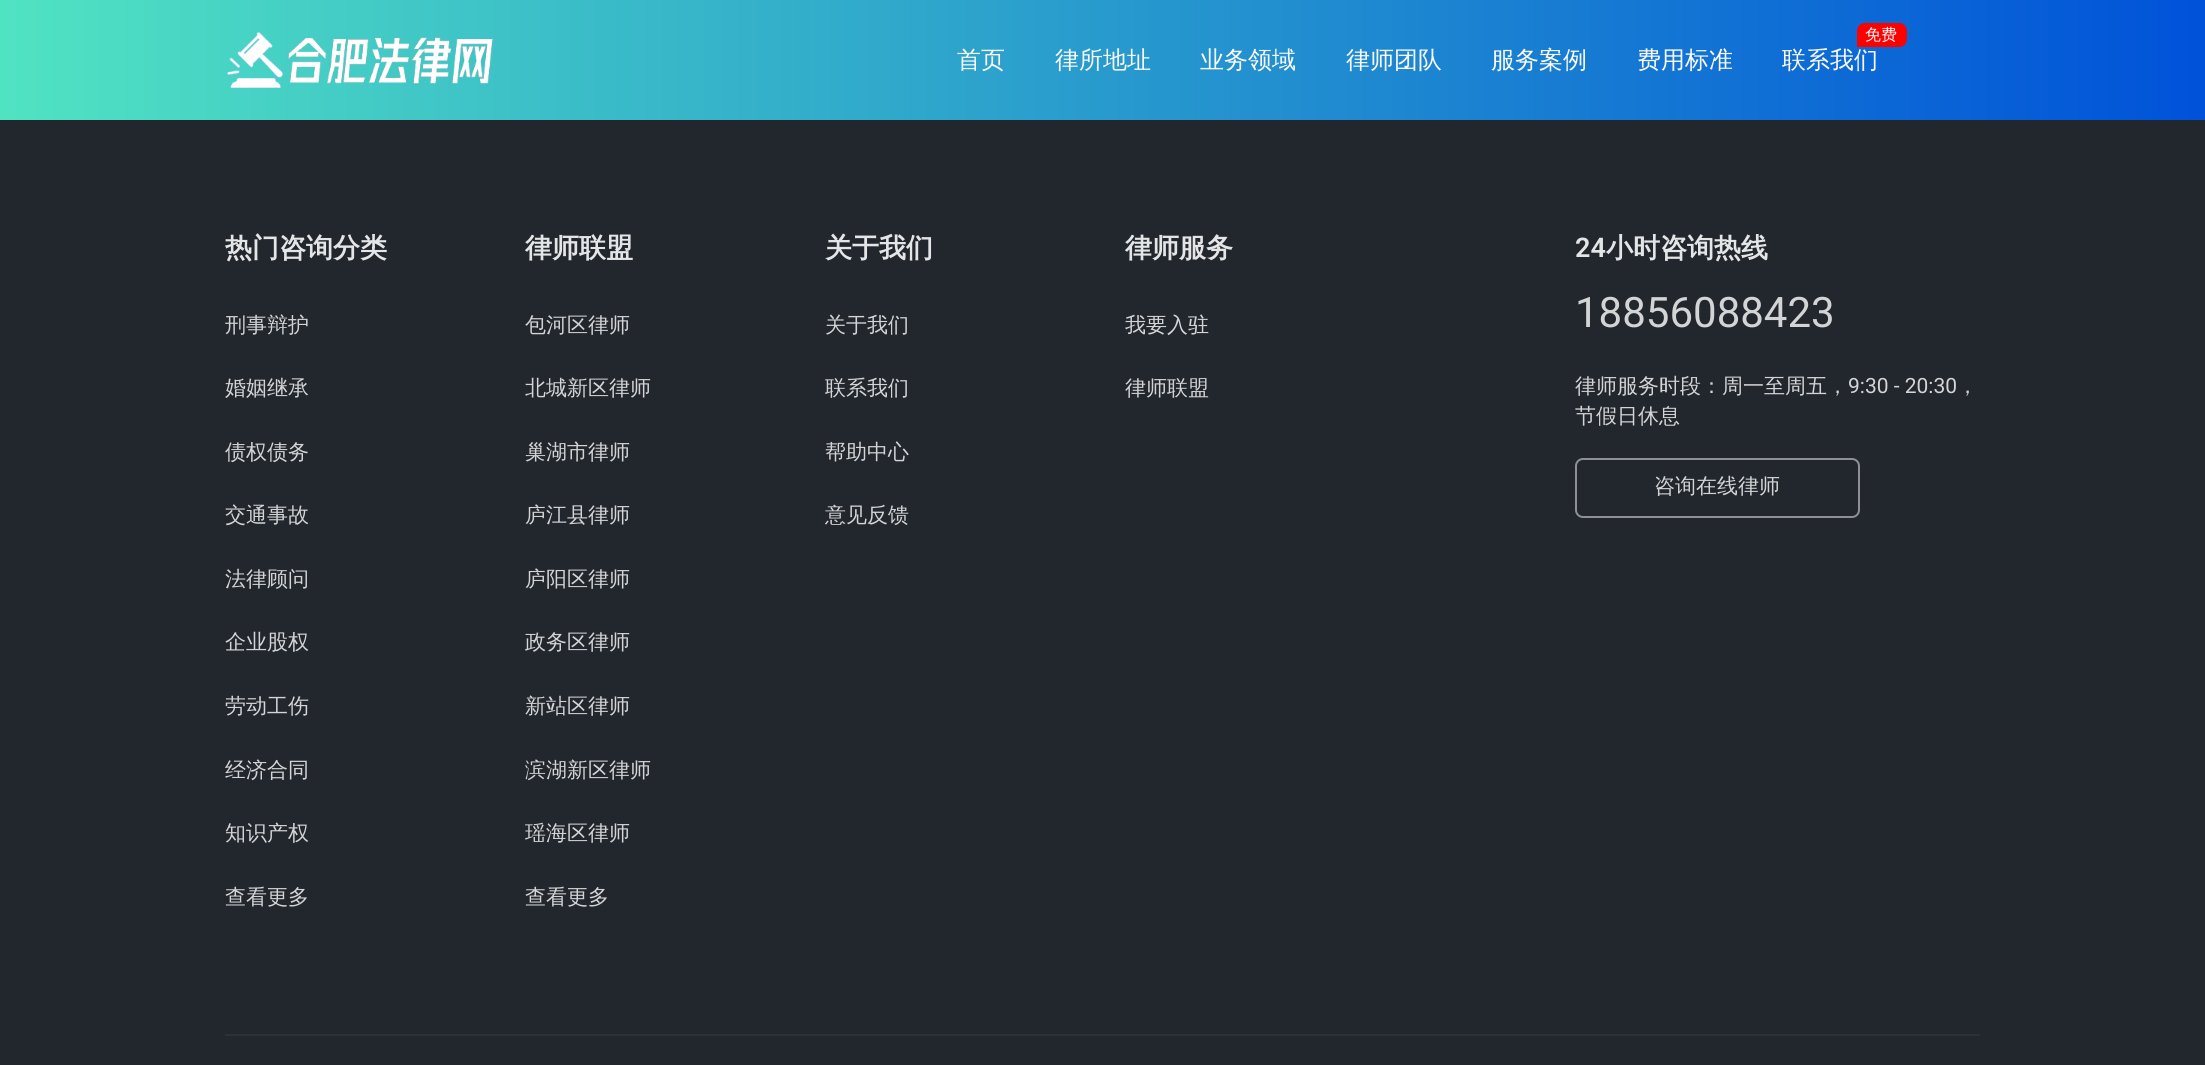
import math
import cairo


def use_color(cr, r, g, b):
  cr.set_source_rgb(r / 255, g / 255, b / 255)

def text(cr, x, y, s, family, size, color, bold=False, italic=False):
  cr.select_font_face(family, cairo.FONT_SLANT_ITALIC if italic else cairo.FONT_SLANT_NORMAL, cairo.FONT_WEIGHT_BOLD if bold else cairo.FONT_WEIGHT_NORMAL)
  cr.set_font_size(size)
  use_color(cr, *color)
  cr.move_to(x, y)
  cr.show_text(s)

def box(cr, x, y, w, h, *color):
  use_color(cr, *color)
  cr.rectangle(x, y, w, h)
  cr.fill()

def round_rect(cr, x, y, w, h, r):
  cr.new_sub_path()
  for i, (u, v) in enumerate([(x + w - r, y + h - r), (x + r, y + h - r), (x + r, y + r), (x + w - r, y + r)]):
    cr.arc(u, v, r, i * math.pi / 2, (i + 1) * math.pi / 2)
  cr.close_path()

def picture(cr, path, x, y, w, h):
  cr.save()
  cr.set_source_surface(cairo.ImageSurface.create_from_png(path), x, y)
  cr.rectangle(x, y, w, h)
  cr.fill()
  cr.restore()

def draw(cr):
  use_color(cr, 34, 38, 45)
  cr.paint()
  gradient = cairo.LinearGradient(0, 60, 2205, 60)
  gradient.add_color_stop_rgba(0, 0.314, 0.89, 0.761, 1)
  gradient.add_color_stop_rgba(1, 0, 0.322, 0.851, 1)
  cr.set_source(gradient)
  cr.rectangle(0, 0, 2205, 120)
  cr.fill()
  picture(cr, "img_01.png", 227, 32, 266, 56)
  use_color(cr, 255, 0, 0)
  cr.new_path()
  cr.move_to(1865, 23)
  cr.line_to(1899, 23)
  cr.curve_to(1903.5, 23, 1907, 26.5, 1907, 31)
  cr.line_to(1907, 39)
  cr.curve_to(1907, 43.5, 1903.5, 47, 1899, 47)
  cr.line_to(1857, 47)
  cr.line_to(1857, 31)
  cr.curve_to(1857, 26.5, 1860.5, 23, 1865, 23)
  cr.close_path()
  cr.fill()
  round_rect(cr, 1576, 459, 283, 58, 7)
  use_color(cr, 142, 144, 148)
  cr.stroke()
  box(cr, 225, 1034, 1755, 2, 45, 49, 55)
  text(cr, 957, 68, "首页", "WenQuanYi Zen Hei Medium", 24, (250, 250, 250))
  text(cr, 1055, 68, "律所地址", "WenQuanYi Zen Hei Medium", 24, (250, 250, 250))
  text(cr, 1200, 68, "业务领域", "WenQuanYi Zen Hei Medium", 24, (250, 250, 250))
  text(cr, 1346, 68, "律师团队", "WenQuanYi Zen Hei Medium", 24, (250, 250, 250))
  text(cr, 1491, 68, "服务案例", "WenQuanYi Zen Hei Medium", 24, (250, 250, 250))
  text(cr, 1637, 68, "费用标准", "WenQuanYi Zen Hei Medium", 24, (250, 250, 250))
  text(cr, 1865, 40, "免费", "WenQuanYi Zen Hei Medium", 16, (250, 250, 250))
  text(cr, 1782, 68, "联系我们", "WenQuanYi Zen Hei Medium", 24, (250, 250, 250))
  text(cr, 225, 257, "热门咨询分类", "WenQuanYi Zen Hei", 27, (228, 229, 230), bold=True)
  text(cr, 225, 332, "刑事辩护", "WenQuanYi Zen Hei Medium", 21, (211, 212, 213))
  text(cr, 225, 395, "婚姻继承", "WenQuanYi Zen Hei Medium", 21, (211, 212, 213))
  text(cr, 225, 459, "债权债务", "WenQuanYi Zen Hei Medium", 21, (211, 212, 213))
  text(cr, 225, 522, "交通事故", "WenQuanYi Zen Hei Medium", 21, (211, 212, 213))
  text(cr, 225, 586, "法律顾问", "WenQuanYi Zen Hei Medium", 21, (211, 212, 213))
  text(cr, 225, 649, "企业股权", "WenQuanYi Zen Hei Medium", 21, (211, 212, 213))
  text(cr, 225, 713, "劳动工伤", "WenQuanYi Zen Hei Medium", 21, (211, 212, 213))
  text(cr, 225, 777, "经济合同", "WenQuanYi Zen Hei Medium", 21, (211, 212, 213))
  text(cr, 225, 840, "知识产权", "WenQuanYi Zen Hei Medium", 21, (211, 212, 213))
  text(cr, 225, 904, "查看更多", "WenQuanYi Zen Hei Medium", 21, (211, 212, 213))
  text(cr, 525, 257, "律师联盟", "WenQuanYi Zen Hei", 27, (228, 229, 230), bold=True)
  text(cr, 525, 332, "包河区律师", "WenQuanYi Zen Hei Medium", 21, (211, 212, 213))
  text(cr, 525, 395, "北城新区律师", "WenQuanYi Zen Hei Medium", 21, (211, 212, 213))
  text(cr, 525, 459, "巢湖市律师", "WenQuanYi Zen Hei Medium", 21, (211, 212, 213))
  text(cr, 525, 522, "庐江县律师", "WenQuanYi Zen Hei Medium", 21, (211, 212, 213))
  text(cr, 525, 586, "庐阳区律师", "WenQuanYi Zen Hei Medium", 21, (211, 212, 213))
  text(cr, 525, 649, "政务区律师", "WenQuanYi Zen Hei Medium", 21, (211, 212, 213))
  text(cr, 525, 713, "新站区律师", "WenQuanYi Zen Hei Medium", 21, (211, 212, 213))
  text(cr, 525, 777, "滨湖新区律师", "WenQuanYi Zen Hei Medium", 21, (211, 212, 213))
  text(cr, 525, 840, "瑶海区律师", "WenQuanYi Zen Hei Medium", 21, (211, 212, 213))
  text(cr, 525, 904, "查看更多", "WenQuanYi Zen Hei Medium", 21, (211, 212, 213))
  text(cr, 825, 257, "关于我们", "WenQuanYi Zen Hei", 27, (228, 229, 230), bold=True)
  text(cr, 825, 332, "关于我们", "WenQuanYi Zen Hei Medium", 21, (211, 212, 213))
  text(cr, 825, 395, "联系我们", "WenQuanYi Zen Hei Medium", 21, (211, 212, 213))
  text(cr, 825, 459, "帮助中心", "WenQuanYi Zen Hei Medium", 21, (211, 212, 213))
  text(cr, 825, 522, "意见反馈", "WenQuanYi Zen Hei Medium", 21, (211, 212, 213))
  text(cr, 1125, 257, "律师服务", "WenQuanYi Zen Hei", 27, (228, 229, 230), bold=True)
  text(cr, 1125, 332, "我要入驻", "WenQuanYi Zen Hei Medium", 21, (211, 212, 213))
  text(cr, 1125, 395, "律师联盟", "WenQuanYi Zen Hei Medium", 21, (211, 212, 213))
  text(cr, 1575, 257, "24", "Roboto SemiBold", 27, (228, 229, 230))
  text(cr, 1606, 257, "小时咨询热线", "WenQuanYi Zen Hei", 27, (228, 229, 230), bold=True)
  text(cr, 1575, 327, "18856088423", "Roboto", 42, (211, 212, 213))
  text(cr, 1575, 393, "律师服务时段：周一至周五，", "WenQuanYi Zen Hei Medium", 21, (211, 212, 213))
  text(cr, 1848, 393, "9:30 - 20:30", "Roboto", 21, (211, 212, 213))
  text(cr, 1957, 393, "，", "WenQuanYi Zen Hei Medium", 21, (211, 212, 213))
  text(cr, 1575, 423, "节假日休息", "WenQuanYi Zen Hei Medium", 21, (211, 212, 213))
  text(cr, 1654, 493, "咨询在线律师", "WenQuanYi Zen Hei Medium", 21, (211, 212, 213))


surface = cairo.ImageSurface(cairo.FORMAT_RGB24, 2205, 1065)
cr = cairo.Context(surface)
options = cairo.FontOptions()
options.set_hint_metrics(cairo.HINT_METRICS_OFF)
options.set_hint_style(cairo.HINT_STYLE_NONE)
cr.set_font_options(options)
cr.set_miter_limit(4)
draw(cr)
surface.write_to_png("out.png")
